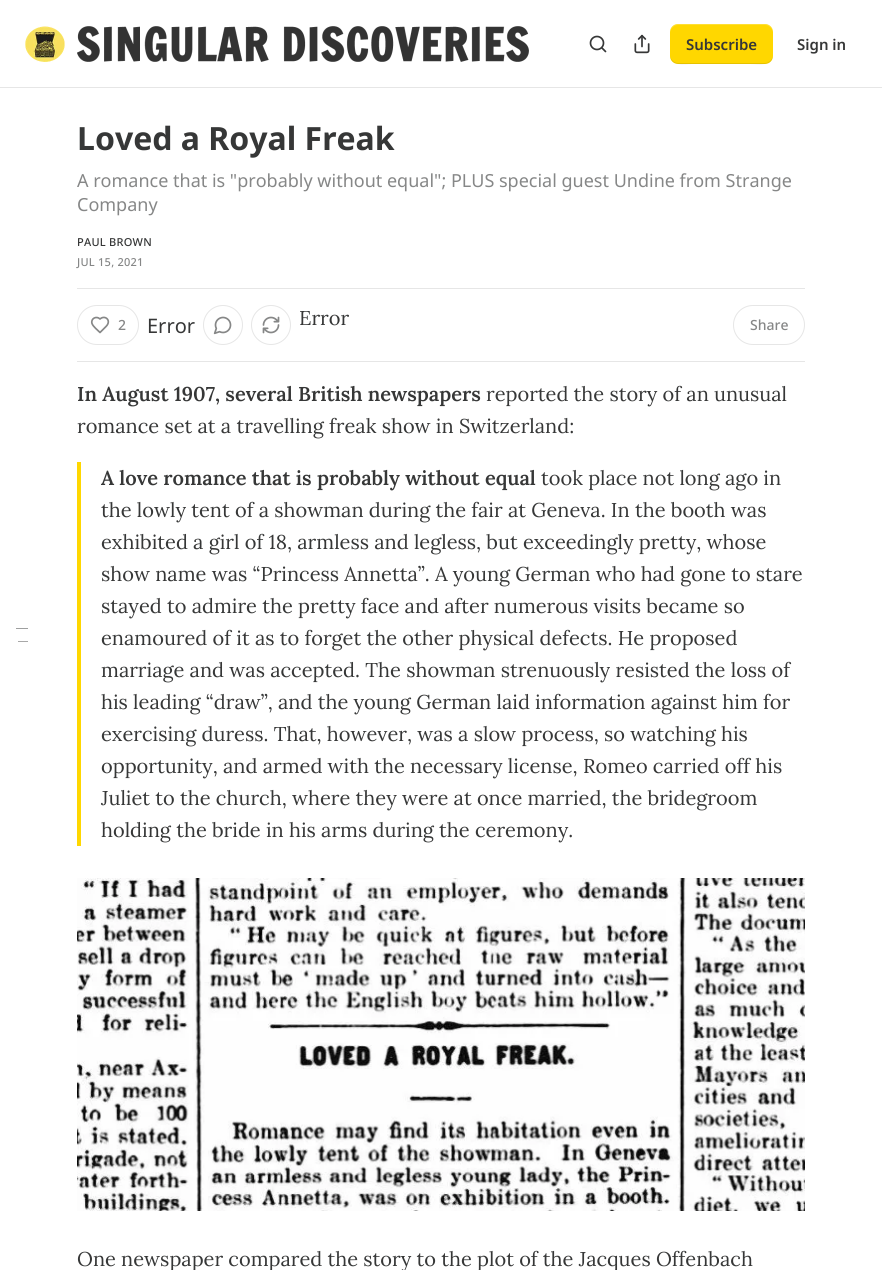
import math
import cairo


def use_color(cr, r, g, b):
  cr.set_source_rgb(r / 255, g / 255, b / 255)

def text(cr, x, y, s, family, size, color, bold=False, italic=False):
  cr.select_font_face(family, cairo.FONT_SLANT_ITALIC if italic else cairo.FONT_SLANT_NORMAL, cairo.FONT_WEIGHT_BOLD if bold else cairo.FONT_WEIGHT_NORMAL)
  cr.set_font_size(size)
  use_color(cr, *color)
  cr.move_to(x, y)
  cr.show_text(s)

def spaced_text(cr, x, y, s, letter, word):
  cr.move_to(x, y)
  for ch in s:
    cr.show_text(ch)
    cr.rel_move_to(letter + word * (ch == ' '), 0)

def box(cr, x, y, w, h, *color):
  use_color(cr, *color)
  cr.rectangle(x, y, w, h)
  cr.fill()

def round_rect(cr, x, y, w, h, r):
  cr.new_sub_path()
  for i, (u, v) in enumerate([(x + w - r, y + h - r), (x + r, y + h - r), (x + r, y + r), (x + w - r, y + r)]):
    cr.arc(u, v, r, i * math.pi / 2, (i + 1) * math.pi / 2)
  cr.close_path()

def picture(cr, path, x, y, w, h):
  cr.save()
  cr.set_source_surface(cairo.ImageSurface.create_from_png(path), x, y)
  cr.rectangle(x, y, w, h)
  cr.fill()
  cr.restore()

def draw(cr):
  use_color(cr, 255, 255, 255)
  cr.paint()
  box(cr, 0, 87, 882, 1, 230, 230, 230)
  picture(cr, "img_01.png", 25, 26, 40, 36)
  picture(cr, "img_02.png", 77, 26, 452, 36)
  cr.arc(597, 43, 6.5, 0, 2 * math.pi)
  use_color(cr, 54, 55, 55)
  cr.set_line_width(1.7)
  cr.stroke()
  cr.new_path()
  cr.move_to(605.5, 51.5)
  cr.line_to(602, 48)
  cr.set_line_cap(cairo.LINE_CAP_ROUND)
  cr.set_line_join(cairo.LINE_JOIN_ROUND)
  cr.stroke()
  picture(cr, "img_03.png", 634, 34, 16, 20)
  use_color(cr, 255, 215, 0)
  round_rect(cr, 670, 24, 103, 40, 8)
  cr.fill()
  cr.set_source_rgba(0, 0, 0, 0.1)
  cr.new_path()
  cr.move_to(670, 55)
  cr.curve_to(670, 67, 684, 64, 692, 64)
  cr.line_to(750, 64)
  cr.curve_to(759, 64, 773, 67, 773, 55)
  cr.curve_to(773, 59, 769, 63, 765, 63)
  cr.line_to(678, 63)
  cr.curve_to(674, 63, 670, 59, 670, 55)
  cr.close_path()
  cr.fill()
  cr.set_source_rgba(1, 1, 1, 0.2)
  cr.new_path()
  cr.move_to(678, 25)
  cr.line_to(765, 25)
  cr.curve_to(769, 25, 773, 29, 773, 33)
  cr.curve_to(773, 21, 759, 24, 750, 24)
  cr.line_to(692, 24)
  cr.curve_to(684, 24, 670, 21, 670, 33)
  cr.curve_to(670, 29, 674, 25, 678, 25)
  cr.close_path()
  cr.fill()
  box(cr, 77, 288, 728, 1, 230, 230, 230)
  box(cr, 77, 361, 728, 1, 230, 230, 230)
  round_rect(cr, 77.5, 305.5, 61, 39, 19.5)
  cr.set_line_width(1)
  cr.set_line_cap(cairo.LINE_CAP_BUTT)
  cr.set_line_join(cairo.LINE_JOIN_MITER)
  cr.stroke()
  cr.new_path()
  cr.move_to(106, 326.5)
  cr.curve_to(112, 320.5, 105, 314.5, 100, 319)
  cr.curve_to(96.5, 315.5, 90.5, 318.5, 92, 323.5)
  cr.curve_to(93, 326.5, 98, 330.5, 100, 332.5)
  cr.close_path()
  use_color(cr, 134, 135, 135)
  cr.set_line_width(1.7)
  cr.set_line_cap(cairo.LINE_CAP_ROUND)
  cr.set_line_join(cairo.LINE_JOIN_ROUND)
  cr.stroke()
  cr.arc(223, 325, 19.5, 0, 2 * math.pi)
  use_color(cr, 230, 230, 230)
  cr.set_line_width(1)
  cr.set_line_cap(cairo.LINE_CAP_BUTT)
  cr.set_line_join(cairo.LINE_JOIN_MITER)
  cr.stroke()
  picture(cr, "img_04.png", 213, 316, 19, 19)
  cr.arc(271, 325, 19.5, 0, 2 * math.pi)
  cr.stroke()
  picture(cr, "img_05.png", 262, 316, 18, 18)
  round_rect(cr, 733.5, 305.5, 71, 39, 19.5)
  cr.stroke()
  box(cr, 16, 628, 12, 1, 158, 159, 159)
  box(cr, 18, 641, 10, 1, 168, 168, 168)
  box(cr, 77, 462, 4, 384, 255, 215, 0)
  picture(cr, "img_06.png", 77, 878, 728, 333)
  text(cr, 686, 50, "Subscribe", "Noto Sans SemiBold", 15, (54, 55, 55))
  text(cr, 797, 50, "Sign in", "Noto Sans SemiBold", 15, (54, 55, 55))
  text(cr, 77, 150, "Loved a Royal Freak", "Noto Sans", 32, (54, 55, 55), bold=True)
  text(cr, 77, 187, "A romance that is \"probably without equal\"; PLUS special guest Undine from Strange", "Noto Sans", 18, (134, 135, 135))
  text(cr, 77, 211, "Company", "Noto Sans", 18, (134, 135, 135))
  cr.select_font_face("Noto Sans Medium")
  cr.set_font_size(11)
  use_color(cr, 54, 55, 55)
  spaced_text(cr, 77, 246, "PAUL BROWN", 0.25, 0)
  use_color(cr, 134, 135, 135)
  spaced_text(cr, 77, 266, "JUL 15, 2021", 0.25, 0)
  text(cr, 118, 330, "2", "Noto Sans Medium", 14, (134, 135, 135))
  text(cr, 147, 333, "Error", "Noto Sans", 20, (54, 55, 55))
  text(cr, 299, 325, "Error", "Lora", 20, (54, 55, 55))
  text(cr, 750, 330, "Share", "Noto Sans Medium", 14, (134, 135, 135))
  text(cr, 77, 401, "In August 1907, several British newspapers", "Lora SemiBold", 20, (54, 55, 55))
  text(cr, 486, 401, "reported the story of an unusual", "Lora", 20, (54, 55, 55))
  text(cr, 77, 433, "romance set at a travelling freak show in Switzerland:", "Lora", 20, (54, 55, 55))
  text(cr, 101, 485, "A love romance that is probably without equal", "Lora SemiBold", 20, (54, 55, 55))
  text(cr, 541, 485, "took place not long ago in", "Lora", 20, (54, 55, 55))
  text(cr, 101, 517, "the lowly tent of a showman during the fair at Geneva. In the booth was", "Lora", 20, (54, 55, 55))
  text(cr, 101, 549, "exhibited a girl of 18, armless and legless, but exceedingly pretty, whose", "Lora", 20, (54, 55, 55))
  text(cr, 101, 581, "show name was “Princess Annetta”. A young German who had gone to stare", "Lora", 20, (54, 55, 55))
  text(cr, 101, 613, "stayed to admire the pretty face and after numerous visits became so", "Lora", 20, (54, 55, 55))
  text(cr, 101, 645, "enamoured of it as to forget the other physical defects. He proposed", "Lora", 20, (54, 55, 55))
  text(cr, 101, 677, "marriage and was accepted. The showman strenuously resisted the loss of", "Lora", 20, (54, 55, 55))
  text(cr, 101, 709, "his leading “draw”, and the young German laid information against him for", "Lora", 20, (54, 55, 55))
  text(cr, 101, 741, "exercising duress. That, however, was a slow process, so watching his", "Lora", 20, (54, 55, 55))
  text(cr, 101, 773, "opportunity, and armed with the necessary license, Romeo carried off his", "Lora", 20, (54, 55, 55))
  text(cr, 101, 805, "Juliet to the church, where they were at once married, the bridegroom", "Lora", 20, (54, 55, 55))
  text(cr, 101, 837, "holding the bride in his arms during the ceremony.", "Lora", 20, (54, 55, 55))
  text(cr, 77, 1266, "One newspaper compared the story to the plot of the Jacques Offenbach", "Lora", 20, (54, 55, 55))


surface = cairo.ImageSurface(cairo.FORMAT_RGB24, 882, 1270)
cr = cairo.Context(surface)
options = cairo.FontOptions()
options.set_hint_metrics(cairo.HINT_METRICS_OFF)
options.set_hint_style(cairo.HINT_STYLE_NONE)
cr.set_font_options(options)
cr.set_miter_limit(4)
draw(cr)
surface.write_to_png("out.png")
